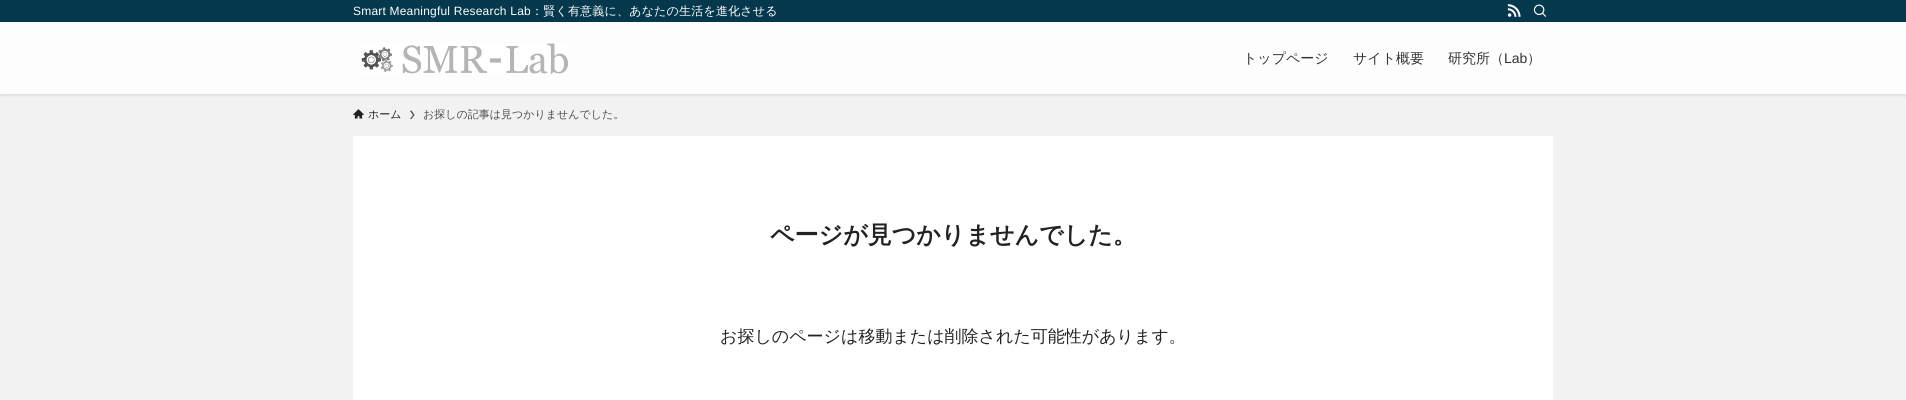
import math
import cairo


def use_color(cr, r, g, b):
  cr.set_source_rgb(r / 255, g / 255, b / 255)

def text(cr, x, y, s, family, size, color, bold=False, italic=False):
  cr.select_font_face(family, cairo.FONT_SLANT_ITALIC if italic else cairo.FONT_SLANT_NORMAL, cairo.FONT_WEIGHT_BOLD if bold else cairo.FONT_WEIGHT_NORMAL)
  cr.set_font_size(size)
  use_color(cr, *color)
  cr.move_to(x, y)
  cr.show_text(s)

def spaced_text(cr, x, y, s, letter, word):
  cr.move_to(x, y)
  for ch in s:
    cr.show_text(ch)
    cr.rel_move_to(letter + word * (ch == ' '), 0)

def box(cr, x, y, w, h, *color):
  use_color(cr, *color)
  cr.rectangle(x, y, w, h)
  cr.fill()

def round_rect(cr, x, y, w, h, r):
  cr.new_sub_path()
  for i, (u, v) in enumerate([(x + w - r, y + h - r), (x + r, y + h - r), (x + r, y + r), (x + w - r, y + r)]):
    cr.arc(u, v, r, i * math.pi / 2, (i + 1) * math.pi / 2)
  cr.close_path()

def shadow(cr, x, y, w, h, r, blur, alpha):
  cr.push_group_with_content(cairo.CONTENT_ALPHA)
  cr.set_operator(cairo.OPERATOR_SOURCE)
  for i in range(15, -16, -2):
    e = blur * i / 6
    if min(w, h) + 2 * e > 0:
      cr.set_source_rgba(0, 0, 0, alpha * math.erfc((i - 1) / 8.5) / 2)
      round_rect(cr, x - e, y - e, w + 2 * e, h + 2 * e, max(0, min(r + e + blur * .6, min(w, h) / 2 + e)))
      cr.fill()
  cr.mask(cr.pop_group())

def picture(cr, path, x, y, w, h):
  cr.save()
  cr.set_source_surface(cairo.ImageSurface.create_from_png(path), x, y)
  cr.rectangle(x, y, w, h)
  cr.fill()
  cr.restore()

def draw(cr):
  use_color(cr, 242, 242, 242)
  cr.paint()
  use_color(cr, 0, 0, 0)
  shadow(cr, 0, 1, 1906, 94, 0, 2, 0.12)
  box(cr, 0, 22, 1906, 72, 253, 253, 253)
  box(cr, 0, 0, 1906, 22, 4, 56, 76)
  picture(cr, "img_01.png", 1507, 4, 14, 13)
  picture(cr, "img_02.png", 1533, 4, 14, 13)
  picture(cr, "img_03.png", 361, 43, 207, 31)
  picture(cr, "img_04.png", 353, 109, 11, 10)
  use_color(cr, 76, 76, 76)
  cr.new_path()
  cr.move_to(411.5, 110.5)
  cr.line_to(410, 111)
  cr.line_to(413, 115)
  cr.line_to(410, 119)
  cr.line_to(411.5, 119)
  cr.line_to(414.5, 115)
  cr.close_path()
  cr.fill()
  box(cr, 353, 136, 1200, 264, 255, 255, 255)
  cr.select_font_face("Liberation Sans")
  cr.set_font_size(12)
  spaced_text(cr, 353, 15, "Smart Meaningful Research Lab", 0.2, 0)
  cr.select_font_face("WenQuanYi Zen Hei Medium")
  spaced_text(cr, 531, 15, "：賢く有意義に、あなたの生活を進化させる", 0.2, 0)
  text(cr, 1243, 63, "トップページ", "WenQuanYi Zen Hei Medium", 14, (51, 51, 51))
  text(cr, 1353, 63, "サイト概要", "WenQuanYi Zen Hei Medium", 14, (51, 51, 51))
  text(cr, 1448, 63, "研究所（", "WenQuanYi Zen Hei Medium", 14, (51, 51, 51))
  text(cr, 1504, 63, "Lab", "Liberation Sans", 14, (51, 51, 51))
  text(cr, 1527, 63, "）", "WenQuanYi Zen Hei Medium", 14, (51, 51, 51))
  text(cr, 368, 118, "ホーム", "WenQuanYi Zen Hei Medium", 11, (34, 34, 34))
  text(cr, 423, 118, "お探しの記事は見つかりませんでした。", "WenQuanYi Zen Hei Medium", 11, (76, 76, 76))
  text(cr, 770, 243, "ページが見つかりませんでした。", "WenQuanYi Zen Hei", 24, (34, 34, 34), bold=True)
  text(cr, 720, 342, "お探しのページは移動または削除された可能性があります。", "WenQuanYi Zen Hei Medium", 17, (34, 34, 34))


surface = cairo.ImageSurface(cairo.FORMAT_RGB24, 1906, 400)
cr = cairo.Context(surface)
options = cairo.FontOptions()
options.set_hint_metrics(cairo.HINT_METRICS_OFF)
options.set_hint_style(cairo.HINT_STYLE_NONE)
cr.set_font_options(options)
cr.set_miter_limit(4)
draw(cr)
surface.write_to_png("out.png")
